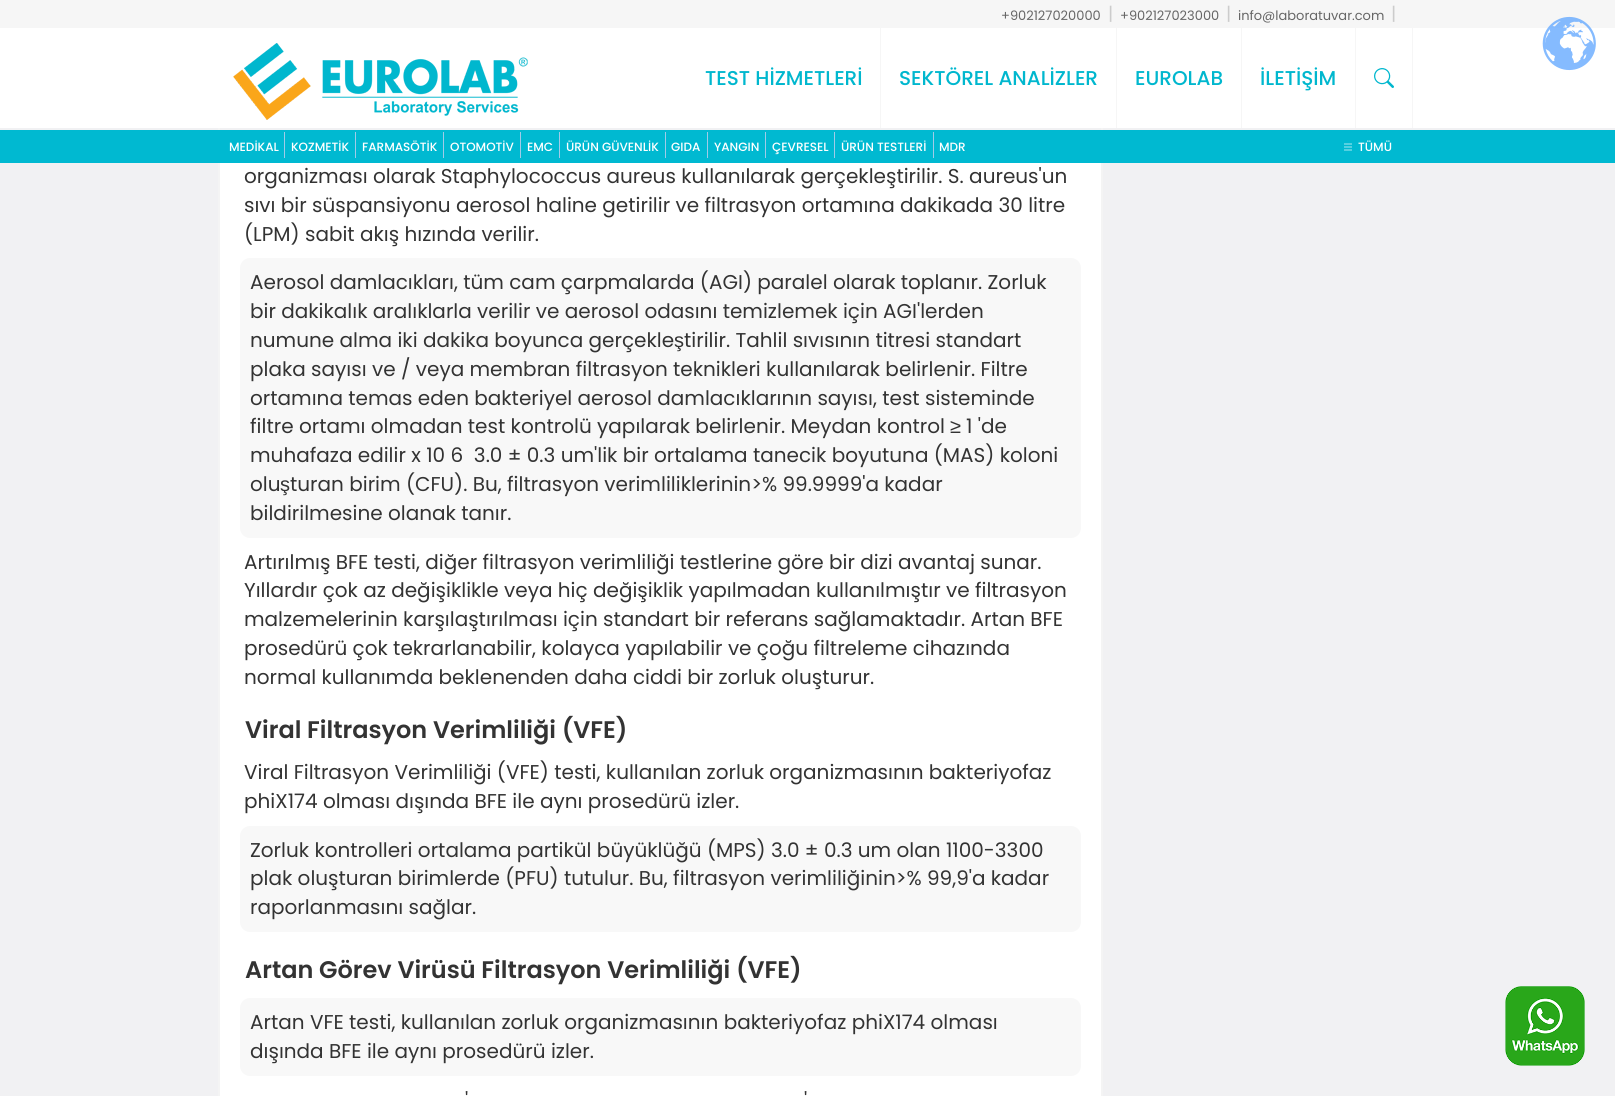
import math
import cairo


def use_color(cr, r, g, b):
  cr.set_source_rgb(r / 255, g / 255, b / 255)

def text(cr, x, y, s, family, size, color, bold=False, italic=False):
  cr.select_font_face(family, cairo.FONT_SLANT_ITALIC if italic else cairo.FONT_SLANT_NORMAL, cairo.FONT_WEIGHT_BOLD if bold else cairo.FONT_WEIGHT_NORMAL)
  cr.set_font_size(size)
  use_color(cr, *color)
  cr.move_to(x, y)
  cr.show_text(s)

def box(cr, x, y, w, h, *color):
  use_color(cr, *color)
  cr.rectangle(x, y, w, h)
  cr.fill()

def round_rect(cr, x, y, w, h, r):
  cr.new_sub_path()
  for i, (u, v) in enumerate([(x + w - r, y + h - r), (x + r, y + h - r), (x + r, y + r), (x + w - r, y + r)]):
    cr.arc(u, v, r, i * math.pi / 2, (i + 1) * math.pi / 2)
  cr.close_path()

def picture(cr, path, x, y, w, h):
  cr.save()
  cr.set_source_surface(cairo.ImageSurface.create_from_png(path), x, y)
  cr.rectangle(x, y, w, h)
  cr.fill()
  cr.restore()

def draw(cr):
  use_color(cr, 241, 241, 243)
  cr.paint()
  box(cr, 220, 163, 881, 933, 255, 255, 255)
  cr.rectangle(219, -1, 883, 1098)
  use_color(cr, 244, 244, 244)
  cr.stroke()
  box(cr, 0, 28, 1615, 100, 255, 255, 255)
  box(cr, 0, 0, 1615, 28, 246, 246, 246)
  picture(cr, "img_01.png", 1542, 16, 54, 55)
  picture(cr, "img_02.png", 233, 43, 295, 77)
  box(cr, 880, 28, 1, 100, 246, 246, 246)
  box(cr, 1116, 28, 1, 100, 246, 246, 246)
  box(cr, 1241, 28, 1, 100, 246, 246, 246)
  box(cr, 1355, 28, 1, 100, 246, 246, 246)
  box(cr, 1412, 28, 1, 100, 246, 246, 246)
  picture(cr, "img_03.png", 1374, 68, 20, 20)
  box(cr, 0, 130, 1615, 33, 0, 185, 209)
  box(cr, 284, 132, 1, 26, 162, 203, 232)
  box(cr, 355, 132, 1, 26, 162, 203, 232)
  box(cr, 443, 132, 1, 26, 162, 203, 232)
  box(cr, 520, 132, 1, 26, 162, 203, 232)
  box(cr, 559, 132, 1, 26, 162, 203, 232)
  box(cr, 665, 132, 1, 26, 162, 203, 232)
  box(cr, 707, 132, 1, 26, 162, 203, 232)
  box(cr, 765, 132, 1, 26, 162, 203, 232)
  box(cr, 834, 132, 1, 26, 162, 203, 232)
  box(cr, 933, 132, 1, 26, 162, 203, 232)
  picture(cr, "img_04.png", 1344, 143, 8, 8)
  use_color(cr, 248, 248, 248)
  round_rect(cr, 240, 258, 841, 280, 10)
  cr.fill()
  round_rect(cr, 240, 826, 841, 106, 10)
  cr.fill()
  round_rect(cr, 240, 998, 841, 78, 10)
  cr.fill()
  picture(cr, "img_05.png", 1505, 986, 80, 80)
  text(cr, 1001, 20, "+902127020000", "Poppins", 13, (102, 102, 102))
  text(cr, 1108, 20, "|", "Poppins", 18, (204, 204, 204))
  text(cr, 1120, 20, "+902127023000", "Poppins", 13, (102, 102, 102))
  text(cr, 1226, 20, "|", "Poppins", 18, (204, 204, 204))
  text(cr, 1238, 20, "info@laboratuvar.com", "Poppins", 13, (102, 102, 102))
  text(cr, 1391, 20, "|", "Poppins", 18, (204, 204, 204))
  text(cr, 705, 85, "TEST HİZMETLERİ", "Poppins Medium", 20, (0, 183, 206))
  text(cr, 899, 85, "SEKTÖREL ANALİZLER", "Poppins Medium", 20, (0, 183, 206))
  text(cr, 1135, 85, "EUROLAB", "Poppins Medium", 20, (0, 183, 206))
  text(cr, 1260, 85, "İLETİŞİM", "Poppins Medium", 20, (0, 183, 206))
  text(cr, 229, 151, "MEDİKAL", "Poppins Medium", 12, (255, 255, 255))
  text(cr, 291, 151, "KOZMETİK", "Poppins Medium", 12, (255, 255, 255))
  text(cr, 362, 151, "FARMASÖTİK", "Poppins Medium", 12, (255, 255, 255))
  text(cr, 450, 151, "OTOMOTİV", "Poppins Medium", 12, (255, 255, 255))
  text(cr, 527, 151, "EMC", "Poppins Medium", 12, (255, 255, 255))
  text(cr, 566, 151, "ÜRÜN GÜVENLİK", "Poppins Medium", 12, (255, 255, 255))
  text(cr, 671, 151, "GIDA", "Poppins Medium", 12, (255, 255, 255))
  text(cr, 714, 151, "YANGIN", "Poppins Medium", 12, (255, 255, 255))
  text(cr, 772, 151, "ÇEVRESEL", "Poppins Medium", 12, (255, 255, 255))
  text(cr, 841, 151, "ÜRÜN TESTLERİ", "Poppins Medium", 12, (255, 255, 255))
  text(cr, 939, 151, "MDR", "Poppins Medium", 12, (255, 255, 255))
  text(cr, 1358, 151, "TÜMÜ", "Poppins Medium", 12, (255, 255, 255))
  text(cr, 244, 183, "organizması olarak Staphylococcus aureus kullanılarak gerçekleştirilir. S. aureus'un", "Poppins", 20, (51, 51, 51))
  text(cr, 244, 212, "sıvı bir süspansiyonu aerosol haline getirilir ve filtrasyon ortamına dakikada 30 litre", "Poppins", 20, (51, 51, 51))
  text(cr, 244, 241, "(LPM) sabit akış hızında verilir.", "Poppins", 20, (51, 51, 51))
  text(cr, 250, 289, "Aerosol damlacıkları, tüm cam çarpmalarda (AGI) paralel olarak toplanır. Zorluk", "Poppins", 20, (51, 51, 51))
  text(cr, 250, 318, "bir dakikalık aralıklarla verilir ve aerosol odasını temizlemek için AGI'lerden", "Poppins", 20, (51, 51, 51))
  text(cr, 250, 347, "numune alma iki dakika boyunca gerçekle", "Poppins", 20, (51, 51, 51))
  text(cr, 674, 347, "ş", "Liberation Sans", 20, (51, 51, 51))
  text(cr, 684, 347, "tirilir. Tahlil sıvısının titresi standart", "Poppins", 20, (51, 51, 51))
  text(cr, 250, 376, "plaka sayısı ve / veya membran filtrasyon teknikleri kullanılarak belirlenir. Filtre", "Poppins", 20, (51, 51, 51))
  text(cr, 250, 405, "ortamına temas eden bakteriyel aerosol damlacıklarının sayısı, test sisteminde", "Poppins", 20, (51, 51, 51))
  text(cr, 250, 433, "filtre ortamı olmadan test kontrolü yapılarak belirlenir. Meydan kontrol", "Poppins", 20, (51, 51, 51))
  text(cr, 950, 433, "≥", "Liberation Sans", 20, (51, 51, 51))
  text(cr, 966, 433, "1 'de", "Poppins", 20, (51, 51, 51))
  text(cr, 250, 462, "muhafaza edilir x 10 6  3.0 ± 0.3 um'lik bir ortalama tanecik boyutuna (MAS) koloni", "Poppins", 20, (51, 51, 51))
  text(cr, 250, 491, "olu", "Poppins", 20, (51, 51, 51))
  text(cr, 280, 491, "ş", "Liberation Sans", 20, (51, 51, 51))
  text(cr, 290, 491, "turan birim (CFU). Bu, filtrasyon verimliliklerinin>% 99.9999'a kadar", "Poppins", 20, (51, 51, 51))
  text(cr, 250, 520, "bildirilmesine olanak tanır.", "Poppins", 20, (51, 51, 51))
  text(cr, 244, 569, "Artırılmış BFE testi, diğer filtrasyon verimliliği testlerine göre bir dizi avantaj sunar.", "Poppins", 20, (51, 51, 51))
  text(cr, 244, 597, "Yıllardır çok az değişiklikle veya hiç değişiklik yapılmadan kullanılmıştır ve filtrasyon", "Poppins", 20, (51, 51, 51))
  text(cr, 244, 626, "malzemelerinin karşılaştırılması için standart bir referans sağlamaktadır. Artan BFE", "Poppins", 20, (51, 51, 51))
  text(cr, 244, 655, "prosedürü çok tekrarlanabilir, kolayca yapılabilir ve çoğu filtreleme cihazında", "Poppins", 20, (51, 51, 51))
  text(cr, 244, 684, "normal kullanımda beklenenden daha ciddi bir zorluk oluşturur.", "Poppins", 20, (51, 51, 51))
  text(cr, 245, 738, "Viral Filtrasyon Verimliliği (VFE)", "Poppins SemiBold", 24, (51, 51, 51))
  text(cr, 244, 779, "Viral Filtrasyon Verimliliği (VFE) testi, kullanılan zorluk organizmasının bakteriyofaz", "Poppins", 20, (51, 51, 51))
  text(cr, 244, 808, "phiX174 olması dışında BFE ile aynı prosedürü izler.", "Poppins", 20, (51, 51, 51))
  text(cr, 250, 857, "Zorluk kontrolleri ortalama partikül büyüklüğü (MPS) 3.0 ± 0.3 um olan 1100-3300", "Poppins", 20, (51, 51, 51))
  text(cr, 250, 885, "plak oluşturan birimlerde (PFU) tutulur. Bu, filtrasyon verimliliğinin>% 99,9'a kadar", "Poppins", 20, (51, 51, 51))
  text(cr, 250, 914, "raporlanmasını sağlar.", "Poppins", 20, (51, 51, 51))
  text(cr, 245, 978, "Artan Görev Virüsü Filtrasyon Verimliliği (VFE)", "Poppins SemiBold", 24, (51, 51, 51))
  text(cr, 250, 1029, "Artan VFE testi, kullanılan zorluk organizmasının bakteriyofaz phiX174 olması", "Poppins", 20, (51, 51, 51))
  text(cr, 250, 1058, "dışında BFE ile aynı prosedürü izler.", "Poppins", 20, (51, 51, 51))
  text(cr, 465, 1107, "'", "Poppins", 20, (51, 51, 51))
  text(cr, 804, 1107, "'", "Poppins", 20, (51, 51, 51))


surface = cairo.ImageSurface(cairo.FORMAT_RGB24, 1615, 1096)
cr = cairo.Context(surface)
options = cairo.FontOptions()
options.set_hint_metrics(cairo.HINT_METRICS_OFF)
options.set_hint_style(cairo.HINT_STYLE_NONE)
cr.set_font_options(options)
cr.set_miter_limit(4)
draw(cr)
surface.write_to_png("out.png")
